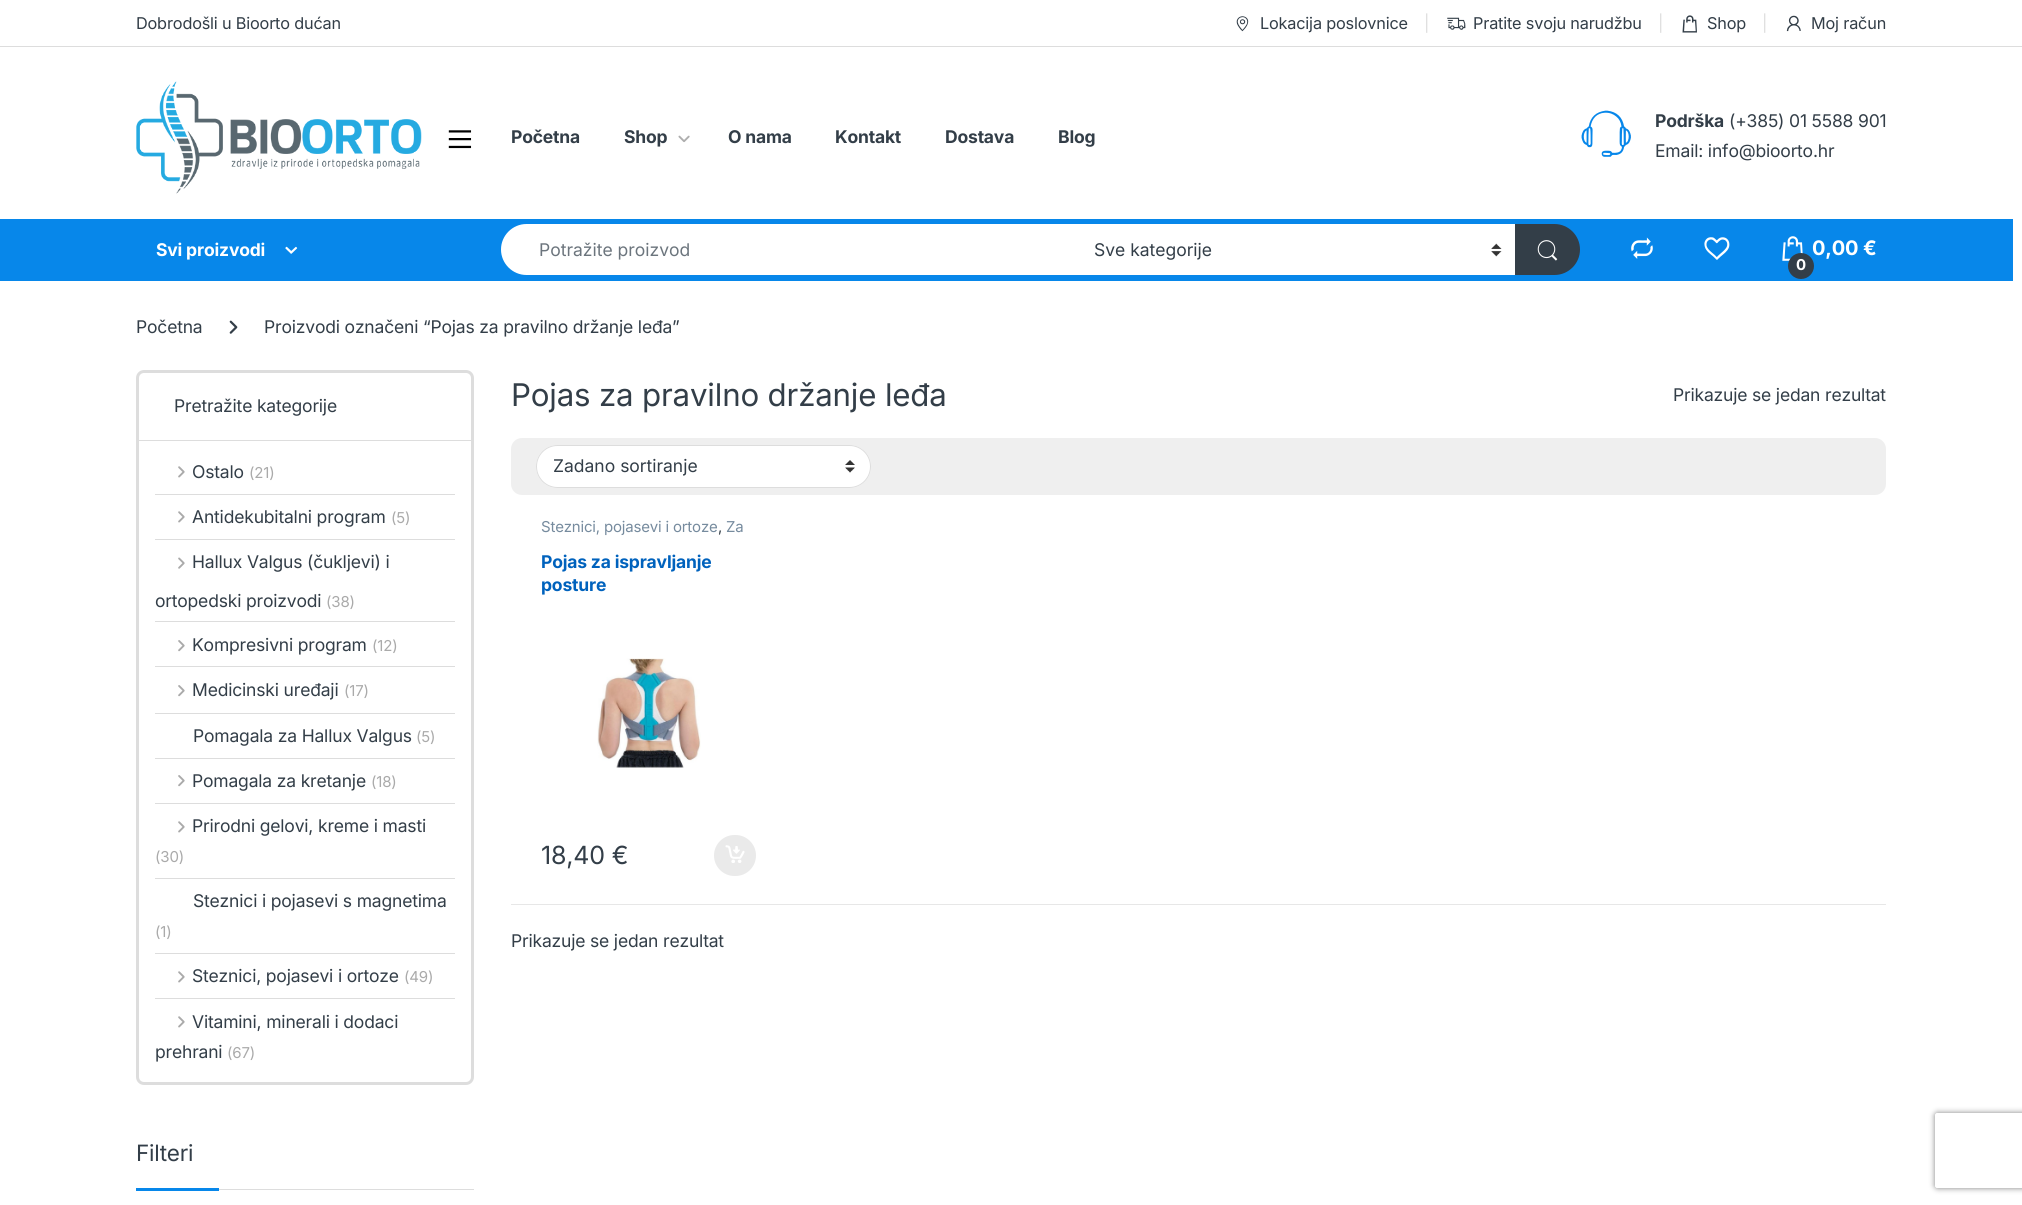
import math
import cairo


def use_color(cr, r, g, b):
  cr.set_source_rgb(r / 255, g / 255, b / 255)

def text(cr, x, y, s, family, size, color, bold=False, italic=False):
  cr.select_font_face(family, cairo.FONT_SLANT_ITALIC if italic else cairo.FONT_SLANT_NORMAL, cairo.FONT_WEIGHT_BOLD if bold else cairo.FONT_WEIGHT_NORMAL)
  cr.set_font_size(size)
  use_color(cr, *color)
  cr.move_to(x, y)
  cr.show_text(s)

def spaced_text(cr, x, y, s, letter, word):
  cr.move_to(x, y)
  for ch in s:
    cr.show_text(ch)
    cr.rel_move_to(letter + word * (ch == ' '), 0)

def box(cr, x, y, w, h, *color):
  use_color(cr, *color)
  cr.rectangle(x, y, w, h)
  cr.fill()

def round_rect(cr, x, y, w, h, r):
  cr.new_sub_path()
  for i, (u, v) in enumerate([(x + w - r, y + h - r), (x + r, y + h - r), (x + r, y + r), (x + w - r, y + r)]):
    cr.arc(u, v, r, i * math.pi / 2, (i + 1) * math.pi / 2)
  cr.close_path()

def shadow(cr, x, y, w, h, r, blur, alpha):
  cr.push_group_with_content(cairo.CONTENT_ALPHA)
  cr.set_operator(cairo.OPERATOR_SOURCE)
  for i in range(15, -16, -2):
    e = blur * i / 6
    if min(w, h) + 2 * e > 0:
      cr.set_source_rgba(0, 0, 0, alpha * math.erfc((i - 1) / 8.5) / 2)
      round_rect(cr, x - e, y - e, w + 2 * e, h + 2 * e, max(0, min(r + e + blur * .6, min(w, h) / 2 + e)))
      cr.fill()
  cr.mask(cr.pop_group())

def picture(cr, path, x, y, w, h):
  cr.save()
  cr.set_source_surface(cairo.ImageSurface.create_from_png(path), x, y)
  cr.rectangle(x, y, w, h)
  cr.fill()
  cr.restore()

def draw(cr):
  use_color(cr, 255, 255, 255)
  cr.paint()
  box(cr, 0, 46, 2022, 1, 221, 221, 221)
  picture(cr, "img_01.png", 1236, 16, 13, 16)
  picture(cr, "img_02.png", 1447, 17, 19, 13)
  picture(cr, "img_03.png", 1682, 15, 15, 18)
  picture(cr, "img_04.png", 1786, 15, 15, 17)
  picture(cr, "img_05.png", 136, 81, 286, 113)
  picture(cr, "img_06.png", 448, 130, 24, 19)
  picture(cr, "img_07.png", 678, 135, 12, 8)
  picture(cr, "img_08.png", 1581, 110, 50, 47)
  box(cr, 0, 219, 2013, 62, 7, 135, 234)
  picture(cr, "img_09.png", 285, 246, 13, 8)
  use_color(cr, 255, 255, 255)
  cr.new_path()
  cr.move_to(526.5, 224)
  cr.line_to(1081, 224)
  cr.line_to(1081, 275)
  cr.line_to(526.5, 275)
  cr.curve_to(512.5, 275, 501, 263.5, 501, 249.5)
  cr.curve_to(501, 235.5, 512.5, 224, 526.5, 224)
  cr.close_path()
  cr.fill()
  box(cr, 1081, 224, 434, 51, 255, 255, 255)
  picture(cr, "img_10.png", 1491, 243, 11, 14)
  use_color(cr, 51, 62, 72)
  cr.new_path()
  cr.move_to(1515, 224)
  cr.line_to(1554.5, 224)
  cr.curve_to(1568.5, 224, 1580, 235.5, 1580, 249.5)
  cr.curve_to(1580, 263.5, 1568.5, 275, 1554.5, 275)
  cr.line_to(1515, 275)
  cr.close_path()
  cr.fill()
  picture(cr, "img_11.png", 1537, 240, 21, 21)
  picture(cr, "img_12.png", 1631, 237, 22, 22)
  picture(cr, "img_13.png", 1704, 237, 26, 23)
  picture(cr, "img_14.png", 1782, 236, 21, 25)
  picture(cr, "img_15.png", 229, 320, 9, 14)
  round_rect(cr, 137.5, 371.5, 335, 712, 6.5)
  use_color(cr, 221, 221, 221)
  cr.set_line_width(3)
  cr.stroke()
  box(cr, 139, 440, 332, 1, 221, 221, 221)
  picture(cr, "img_16.png", 178, 466, 7, 12)
  box(cr, 155, 494, 300, 1, 221, 221, 221)
  picture(cr, "img_16.png", 178, 511, 7, 12)
  box(cr, 155, 539, 300, 1, 221, 221, 221)
  picture(cr, "img_17.png", 178, 557, 7, 12)
  box(cr, 155, 621, 300, 1, 221, 221, 221)
  picture(cr, "img_18.png", 178, 640, 7, 12)
  box(cr, 155, 666, 300, 1, 221, 221, 221)
  picture(cr, "img_18.png", 178, 685, 7, 12)
  box(cr, 155, 713, 300, 1, 221, 221, 221)
  box(cr, 155, 758, 300, 1, 221, 221, 221)
  picture(cr, "img_18.png", 178, 775, 7, 12)
  box(cr, 155, 803, 300, 1, 221, 221, 221)
  picture(cr, "img_16.png", 178, 821, 7, 12)
  box(cr, 155, 878, 300, 1, 221, 221, 221)
  box(cr, 155, 953, 300, 1, 221, 221, 221)
  picture(cr, "img_16.png", 178, 971, 7, 12)
  box(cr, 155, 998, 300, 1, 221, 221, 221)
  picture(cr, "img_16.png", 178, 1016, 7, 12)
  box(cr, 219, 1189, 255, 1, 221, 221, 221)
  box(cr, 136, 1188, 83, 3, 7, 135, 234)
  use_color(cr, 239, 239, 239)
  round_rect(cr, 511, 438, 1375, 57, 11)
  cr.fill()
  use_color(cr, 255, 255, 255)
  round_rect(cr, 536, 445, 335, 43, 21.5)
  cr.fill()
  picture(cr, "img_19.png", 845, 460, 10, 13)
  round_rect(cr, 536.5, 445.5, 334, 42, 21)
  use_color(cr, 221, 221, 221)
  cr.set_line_width(1)
  cr.stroke()
  picture(cr, "img_20.png", 597, 658, 104, 110)
  use_color(cr, 234, 234, 234)
  round_rect(cr, 714, 835, 42, 41, 20.5)
  cr.fill()
  picture(cr, "img_21.png", 725, 845, 20, 18)
  box(cr, 511, 904, 1375, 1, 231, 231, 231)
  cr.save()
  cr.set_fill_rule(cairo.FILL_RULE_EVEN_ODD)
  cr.new_path()
  cr.move_to(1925, 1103)
  cr.line_to(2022, 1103)
  cr.line_to(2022, 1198)
  cr.line_to(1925, 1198)
  cr.close_path()
  cr.move_to(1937.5, 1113)
  cr.line_to(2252.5, 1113)
  cr.curve_to(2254, 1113, 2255, 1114, 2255, 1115.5)
  cr.line_to(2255, 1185.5)
  cr.curve_to(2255, 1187, 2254, 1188, 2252.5, 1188)
  cr.line_to(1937.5, 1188)
  cr.curve_to(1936, 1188, 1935, 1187, 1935, 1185.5)
  cr.line_to(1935, 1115.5)
  cr.curve_to(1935, 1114, 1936, 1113, 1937.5, 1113)
  cr.close_path()
  cr.clip()
  use_color(cr, 128, 128, 128)
  shadow(cr, 1935, 1113, 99, 75, 2.5, 3, 1)
  cr.restore()
  cr.select_font_face("Inter")
  cr.set_font_size(16.25)
  use_color(cr, 51, 62, 72)
  spaced_text(cr, 136, 29, "Dobrodošli u Bioorto dućan", -0.18, 0)
  spaced_text(cr, 1260, 29, "Lokacija poslovnice", -0.18, 0)
  use_color(cr, 221, 221, 221)
  spaced_text(cr, 1424, 29, "|", -0.18, 0)
  use_color(cr, 51, 62, 72)
  spaced_text(cr, 1473, 29, "Pratite svoju narudžbu", -0.18, 0)
  use_color(cr, 221, 221, 221)
  spaced_text(cr, 1658, 29, "|", -0.18, 0)
  use_color(cr, 51, 62, 72)
  spaced_text(cr, 1707, 29, "Shop", -0.18, 0)
  use_color(cr, 221, 221, 221)
  spaced_text(cr, 1762, 29, "|", -0.18, 0)
  use_color(cr, 51, 62, 72)
  spaced_text(cr, 1811, 29, "Moj račun", -0.18, 0)
  cr.select_font_face("Inter", cairo.FONT_SLANT_NORMAL, cairo.FONT_WEIGHT_BOLD)
  cr.set_font_size(17.5)
  spaced_text(cr, 511, 143, "Početna", -0.18, 0)
  spaced_text(cr, 624, 143, "Shop", -0.18, 0)
  spaced_text(cr, 728, 143, "O nama", -0.18, 0)
  spaced_text(cr, 835, 143, "Kontakt", -0.18, 0)
  spaced_text(cr, 945, 143, "Dostava", -0.18, 0)
  spaced_text(cr, 1058, 143, "Blog", -0.18, 0)
  spaced_text(cr, 1655, 127, "Podrška", -0.18, 0)
  cr.select_font_face("Inter")
  spaced_text(cr, 1729, 127, "(+385) 01 5588 901", -0.18, 0)
  spaced_text(cr, 1655, 157, "Email: info@bioorto.hr", -0.18, 0)
  cr.select_font_face("Inter", cairo.FONT_SLANT_NORMAL, cairo.FONT_WEIGHT_BOLD)
  use_color(cr, 255, 255, 255)
  spaced_text(cr, 156, 256, "Svi proizvodi", -0.18, 0)
  text(cr, 539, 256, "Potražite proizvod", "Inter", 17.5, (108, 117, 125))
  text(cr, 1094, 256, "Sve kategorije", "Inter", 17.5, (51, 62, 72))
  cr.select_font_face("Inter", cairo.FONT_SLANT_NORMAL, cairo.FONT_WEIGHT_BOLD)
  cr.set_font_size(20)
  use_color(cr, 255, 255, 255)
  spaced_text(cr, 1812, 255, "0,00 €", -0.18, 0)
  use_color(cr, 51, 62, 72)
  cr.new_path()
  cr.arc(1801, 266, 13, 0, 2 * math.pi)
  cr.fill()
  cr.set_font_size(15)
  use_color(cr, 255, 255, 255)
  spaced_text(cr, 1796, 270, "0", -0.18, 0)
  cr.select_font_face("Inter")
  cr.set_font_size(17.5)
  use_color(cr, 51, 62, 72)
  spaced_text(cr, 136, 333, "Početna", -0.18, 0)
  spaced_text(cr, 264, 333, "Proizvodi označeni “Pojas za pravilno držanje leđa”", -0.18, 0)
  spaced_text(cr, 174, 412, "Pretražite kategorije", -0.18, 0)
  spaced_text(cr, 192, 478, "Ostalo", -0.18, 0)
  cr.set_font_size(15)
  use_color(cr, 170, 170, 170)
  spaced_text(cr, 249, 478, "(21)", -0.18, 0)
  cr.set_font_size(17.5)
  use_color(cr, 51, 62, 72)
  spaced_text(cr, 192, 523, "Antidekubitalni program", -0.18, 0)
  cr.set_font_size(15)
  use_color(cr, 170, 170, 170)
  spaced_text(cr, 391, 523, "(5)", -0.18, 0)
  cr.set_font_size(17.5)
  use_color(cr, 51, 62, 72)
  spaced_text(cr, 192, 568, "Hallux Valgus (čukljevi) i", -0.18, 0)
  spaced_text(cr, 155, 607, "ortopedski proizvodi", -0.18, 0)
  cr.set_font_size(15)
  use_color(cr, 170, 170, 170)
  spaced_text(cr, 326, 607, "(38)", -0.18, 0)
  cr.set_font_size(17.5)
  use_color(cr, 51, 62, 72)
  spaced_text(cr, 192, 651, "Kompresivni program", -0.18, 0)
  cr.set_font_size(15)
  use_color(cr, 170, 170, 170)
  spaced_text(cr, 372, 651, "(12)", -0.18, 0)
  cr.set_font_size(17.5)
  use_color(cr, 51, 62, 72)
  spaced_text(cr, 192, 696, "Medicinski uređaji", -0.18, 0)
  cr.set_font_size(15)
  use_color(cr, 170, 170, 170)
  spaced_text(cr, 344, 696, "(17)", -0.18, 0)
  cr.set_font_size(17.5)
  use_color(cr, 51, 62, 72)
  spaced_text(cr, 193, 742, "Pomagala za Hallux Valgus", -0.18, 0)
  cr.set_font_size(15)
  use_color(cr, 170, 170, 170)
  spaced_text(cr, 416, 742, "(5)", -0.18, 0)
  cr.set_font_size(17.5)
  use_color(cr, 51, 62, 72)
  spaced_text(cr, 192, 787, "Pomagala za kretanje", -0.18, 0)
  cr.set_font_size(15)
  use_color(cr, 170, 170, 170)
  spaced_text(cr, 371, 787, "(18)", -0.18, 0)
  cr.set_font_size(17.5)
  use_color(cr, 51, 62, 72)
  spaced_text(cr, 192, 832, "Prirodni gelovi, kreme i masti", -0.18, 0)
  cr.set_font_size(15)
  use_color(cr, 170, 170, 170)
  spaced_text(cr, 155, 862, "(30)", -0.18, 0)
  cr.set_font_size(17.5)
  use_color(cr, 51, 62, 72)
  spaced_text(cr, 193, 907, "Steznici i pojasevi s magnetima", -0.18, 0)
  cr.set_font_size(15)
  use_color(cr, 170, 170, 170)
  spaced_text(cr, 155, 937, "(1)", -0.18, 0)
  cr.set_font_size(17.5)
  use_color(cr, 51, 62, 72)
  spaced_text(cr, 192, 982, "Steznici, pojasevi i ortoze", -0.18, 0)
  cr.set_font_size(15)
  use_color(cr, 170, 170, 170)
  spaced_text(cr, 404, 982, "(49)", -0.18, 0)
  cr.set_font_size(17.5)
  use_color(cr, 51, 62, 72)
  spaced_text(cr, 192, 1028, "Vitamini, minerali i dodaci", -0.18, 0)
  spaced_text(cr, 155, 1058, "prehrani", -0.18, 0)
  cr.set_font_size(15)
  use_color(cr, 170, 170, 170)
  spaced_text(cr, 227, 1058, "(67)", -0.18, 0)
  cr.set_font_size(22.5)
  use_color(cr, 51, 62, 72)
  spaced_text(cr, 136, 1161, "Filteri", -0.18, 0)
  cr.set_font_size(31.25)
  spaced_text(cr, 511, 406, "Pojas za pravilno držanje leđa", -0.18, 0)
  cr.set_font_size(17.5)
  spaced_text(cr, 1673, 401, "Prikazuje se jedan rezultat", -0.18, 0)
  text(cr, 553, 472, "Zadano sortiranje", "Inter", 17.5, (51, 62, 72))
  cr.set_font_size(15)
  use_color(cr, 118, 139, 158)
  spaced_text(cr, 541, 532, "Steznici, pojasevi i ortoze", -0.18, 0)
  use_color(cr, 51, 62, 72)
  spaced_text(cr, 718, 532, ",", -0.18, 0)
  use_color(cr, 118, 139, 158)
  spaced_text(cr, 726, 532, "Za", -0.18, 0)
  cr.select_font_face("Inter", cairo.FONT_SLANT_NORMAL, cairo.FONT_WEIGHT_BOLD)
  cr.set_font_size(17.5)
  use_color(cr, 0, 98, 189)
  spaced_text(cr, 541, 568, "Pojas za ispravljanje", -0.18, 0)
  spaced_text(cr, 541, 591, "posture", -0.18, 0)
  cr.select_font_face("Inter")
  cr.set_font_size(25)
  use_color(cr, 51, 62, 72)
  spaced_text(cr, 541, 864, "18,40 €", -0.18, 0)
  cr.set_font_size(17.5)
  spaced_text(cr, 511, 947, "Prikazuje se jedan rezultat", -0.18, 0)


surface = cairo.ImageSurface(cairo.FORMAT_RGB24, 2022, 1205)
cr = cairo.Context(surface)
options = cairo.FontOptions()
options.set_hint_metrics(cairo.HINT_METRICS_OFF)
options.set_hint_style(cairo.HINT_STYLE_NONE)
cr.set_font_options(options)
cr.set_miter_limit(4)
draw(cr)
surface.write_to_png("out.png")
